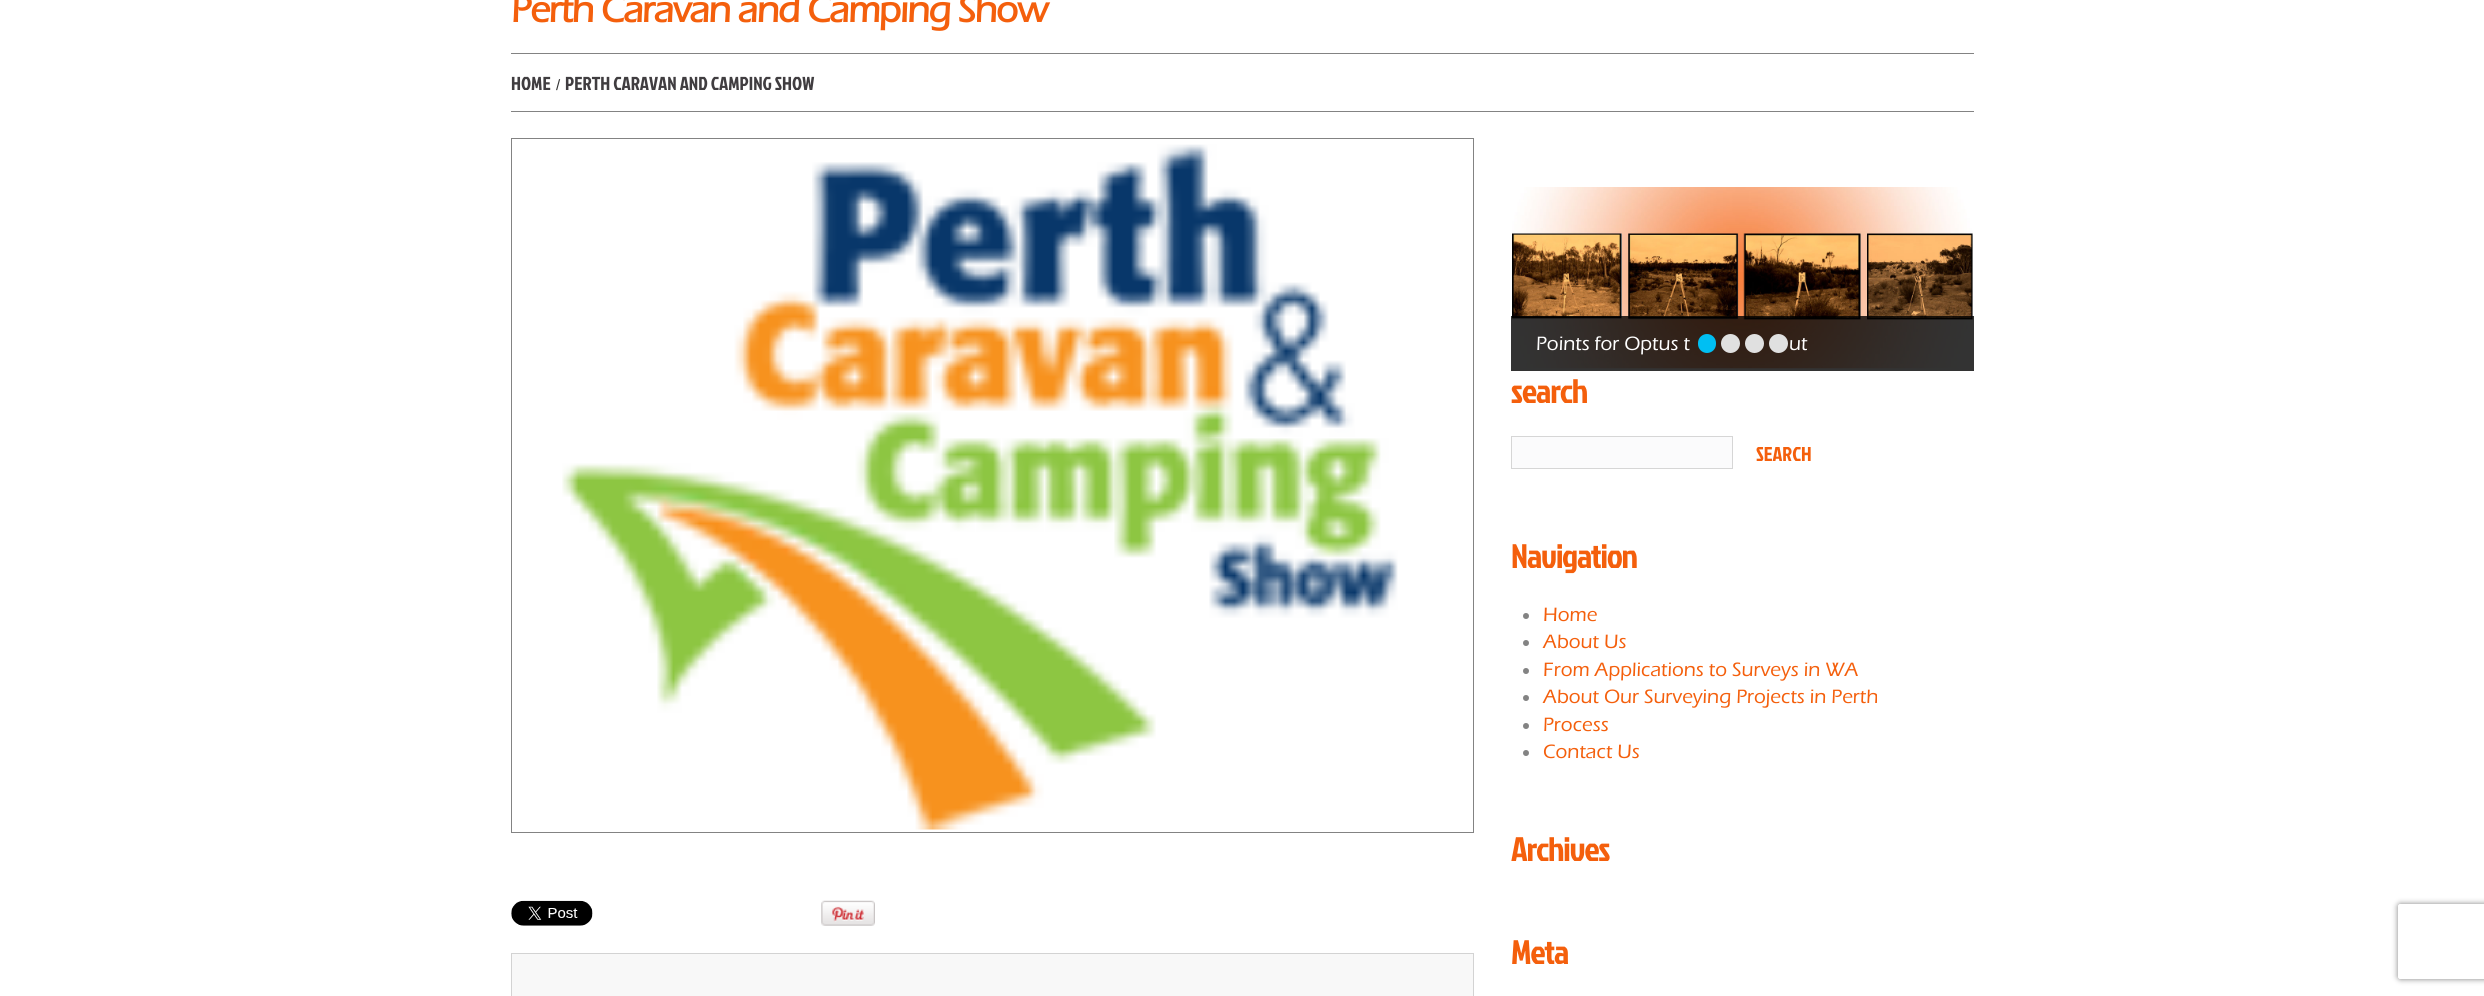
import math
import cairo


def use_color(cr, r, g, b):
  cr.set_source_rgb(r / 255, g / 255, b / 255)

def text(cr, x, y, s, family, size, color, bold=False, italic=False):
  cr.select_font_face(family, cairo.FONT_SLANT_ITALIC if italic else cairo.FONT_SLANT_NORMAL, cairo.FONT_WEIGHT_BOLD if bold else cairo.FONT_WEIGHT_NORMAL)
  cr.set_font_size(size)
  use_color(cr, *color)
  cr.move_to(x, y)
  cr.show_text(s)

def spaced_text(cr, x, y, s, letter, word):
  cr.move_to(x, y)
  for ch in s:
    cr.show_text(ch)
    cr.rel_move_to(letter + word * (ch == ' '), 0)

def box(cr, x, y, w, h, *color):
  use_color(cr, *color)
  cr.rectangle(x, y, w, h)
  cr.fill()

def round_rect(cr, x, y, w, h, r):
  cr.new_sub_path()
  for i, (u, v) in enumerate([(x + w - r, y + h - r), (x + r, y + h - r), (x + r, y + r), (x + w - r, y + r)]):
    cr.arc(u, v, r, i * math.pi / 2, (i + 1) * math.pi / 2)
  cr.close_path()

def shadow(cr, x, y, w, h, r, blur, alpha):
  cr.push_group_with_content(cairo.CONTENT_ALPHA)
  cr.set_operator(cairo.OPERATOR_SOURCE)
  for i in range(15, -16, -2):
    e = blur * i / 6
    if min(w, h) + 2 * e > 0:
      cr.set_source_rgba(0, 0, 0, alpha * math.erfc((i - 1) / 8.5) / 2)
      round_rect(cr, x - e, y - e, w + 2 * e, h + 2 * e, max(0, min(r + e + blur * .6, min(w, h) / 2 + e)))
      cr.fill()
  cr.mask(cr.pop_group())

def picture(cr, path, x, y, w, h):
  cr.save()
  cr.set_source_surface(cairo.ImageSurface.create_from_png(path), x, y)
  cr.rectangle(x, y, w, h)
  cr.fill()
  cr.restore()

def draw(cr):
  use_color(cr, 255, 255, 255)
  cr.paint()
  box(cr, 511, 53, 1463, 1, 131, 131, 131)
  box(cr, 511, 111, 1463, 1, 131, 131, 131)
  cr.rectangle(511.5, 138.5, 962, 694)
  cr.set_line_width(1)
  cr.stroke()
  picture(cr, "img_01.png", 562, 144, 836, 686)
  picture(cr, "img_02.png", 511, 900, 82, 26)
  picture(cr, "img_03.png", 821, 900, 54, 26)
  use_color(cr, 248, 248, 248)
  cr.rectangle(511.5, 953.5, 962, 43)
  cr.fill_preserve()
  use_color(cr, 211, 211, 211)
  cr.stroke()
  picture(cr, "img_04.png", 1512, 187, 461, 182)
  cr.set_source_rgba(0, 0, 0, 0.8)
  cr.rectangle(1511, 316, 463, 55)
  cr.fill()
  use_color(cr, 0, 191, 243)
  round_rect(cr, 1698, 334, 18, 19, 9)
  cr.fill()
  use_color(cr, 224, 224, 224)
  cr.arc(1730.5, 343.5, 9.5, 0, 2 * math.pi)
  cr.fill()
  cr.arc(1754.5, 343.5, 9.5, 0, 2 * math.pi)
  cr.fill()
  cr.arc(1778.5, 343.5, 9.5, 0, 2 * math.pi)
  cr.fill()
  use_color(cr, 251, 251, 252)
  cr.rectangle(1511.5, 436.5, 221, 32)
  cr.fill_preserve()
  use_color(cr, 214, 214, 214)
  cr.stroke()
  use_color(cr, 131, 131, 131)
  cr.arc(1526, 616, 3, 0, 2 * math.pi)
  cr.fill()
  cr.arc(1526, 643, 3, 0, 2 * math.pi)
  cr.fill()
  cr.arc(1526, 671, 3, 0, 2 * math.pi)
  cr.fill()
  cr.arc(1526, 698, 3, 0, 2 * math.pi)
  cr.fill()
  cr.arc(1526, 726, 3, 0, 2 * math.pi)
  cr.fill()
  cr.arc(1526, 753, 3, 0, 2 * math.pi)
  cr.fill()
  cr.save()
  cr.set_fill_rule(cairo.FILL_RULE_EVEN_ODD)
  cr.new_path()
  cr.move_to(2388, 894)
  cr.line_to(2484, 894)
  cr.line_to(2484, 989)
  cr.line_to(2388, 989)
  cr.close_path()
  cr.move_to(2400.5, 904)
  cr.line_to(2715.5, 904)
  cr.curve_to(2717, 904, 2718, 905, 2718, 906.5)
  cr.line_to(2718, 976.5)
  cr.curve_to(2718, 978, 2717, 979, 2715.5, 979)
  cr.line_to(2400.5, 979)
  cr.curve_to(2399, 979, 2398, 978, 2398, 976.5)
  cr.line_to(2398, 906.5)
  cr.curve_to(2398, 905, 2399, 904, 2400.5, 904)
  cr.close_path()
  cr.clip()
  use_color(cr, 128, 128, 128)
  shadow(cr, 2398, 904, 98, 75, 2.5, 3, 1)
  cr.restore()
  cr.select_font_face("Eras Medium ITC", cairo.FONT_SLANT_NORMAL, cairo.FONT_WEIGHT_BOLD)
  cr.set_font_size(37.5)
  use_color(cr, 244, 95, 12)
  spaced_text(cr, 511, 22, "Perth Caravan and Camping Show", -1.25, 0)
  text(cr, 511, 90, "HOME", "Jockey One", 18.75, (64, 61, 64))
  text(cr, 556, 90, "/", "Liberation Sans", 15, (51, 51, 51))
  text(cr, 565, 90, "PERTH CARAVAN AND CAMPING SHOW", "Jockey One", 18.75, (64, 61, 64))
  text(cr, 1536, 350, "Points for Optus t", "Eras Medium ITC Medium", 20, (255, 255, 255))
  text(cr, 1789, 350, "ut", "Eras Medium ITC Medium", 20, (255, 255, 255))
  cr.select_font_face("Jockey One")
  cr.set_font_size(34)
  use_color(cr, 244, 95, 12)
  spaced_text(cr, 1511, 403, "search", -1.25, 0)
  text(cr, 1756, 461, "SEARCH", "Jockey One", 20, (244, 95, 12))
  cr.set_font_size(34)
  spaced_text(cr, 1511, 568, "Navigation", -1.25, 0)
  text(cr, 1543, 621, "Home", "Eras Medium ITC Medium", 20, (244, 95, 12))
  text(cr, 1543, 648, "About Us", "Eras Medium ITC Medium", 20, (244, 95, 12))
  text(cr, 1543, 676, "From Applications to Surveys in WA", "Eras Medium ITC Medium", 20, (244, 95, 12))
  text(cr, 1543, 703, "About Our Surveying Projects in Perth", "Eras Medium ITC Medium", 20, (244, 95, 12))
  text(cr, 1543, 731, "Process", "Eras Medium ITC Medium", 20, (244, 95, 12))
  text(cr, 1543, 758, "Contact Us", "Eras Medium ITC Medium", 20, (244, 95, 12))
  cr.select_font_face("Jockey One")
  cr.set_font_size(34)
  spaced_text(cr, 1511, 861, "Archives", -1.25, 0)
  spaced_text(cr, 1511, 964, "Meta", -1.25, 0)


surface = cairo.ImageSurface(cairo.FORMAT_RGB24, 2484, 996)
cr = cairo.Context(surface)
options = cairo.FontOptions()
options.set_hint_metrics(cairo.HINT_METRICS_OFF)
options.set_hint_style(cairo.HINT_STYLE_NONE)
cr.set_font_options(options)
cr.set_miter_limit(4)
draw(cr)
surface.write_to_png("out.png")
